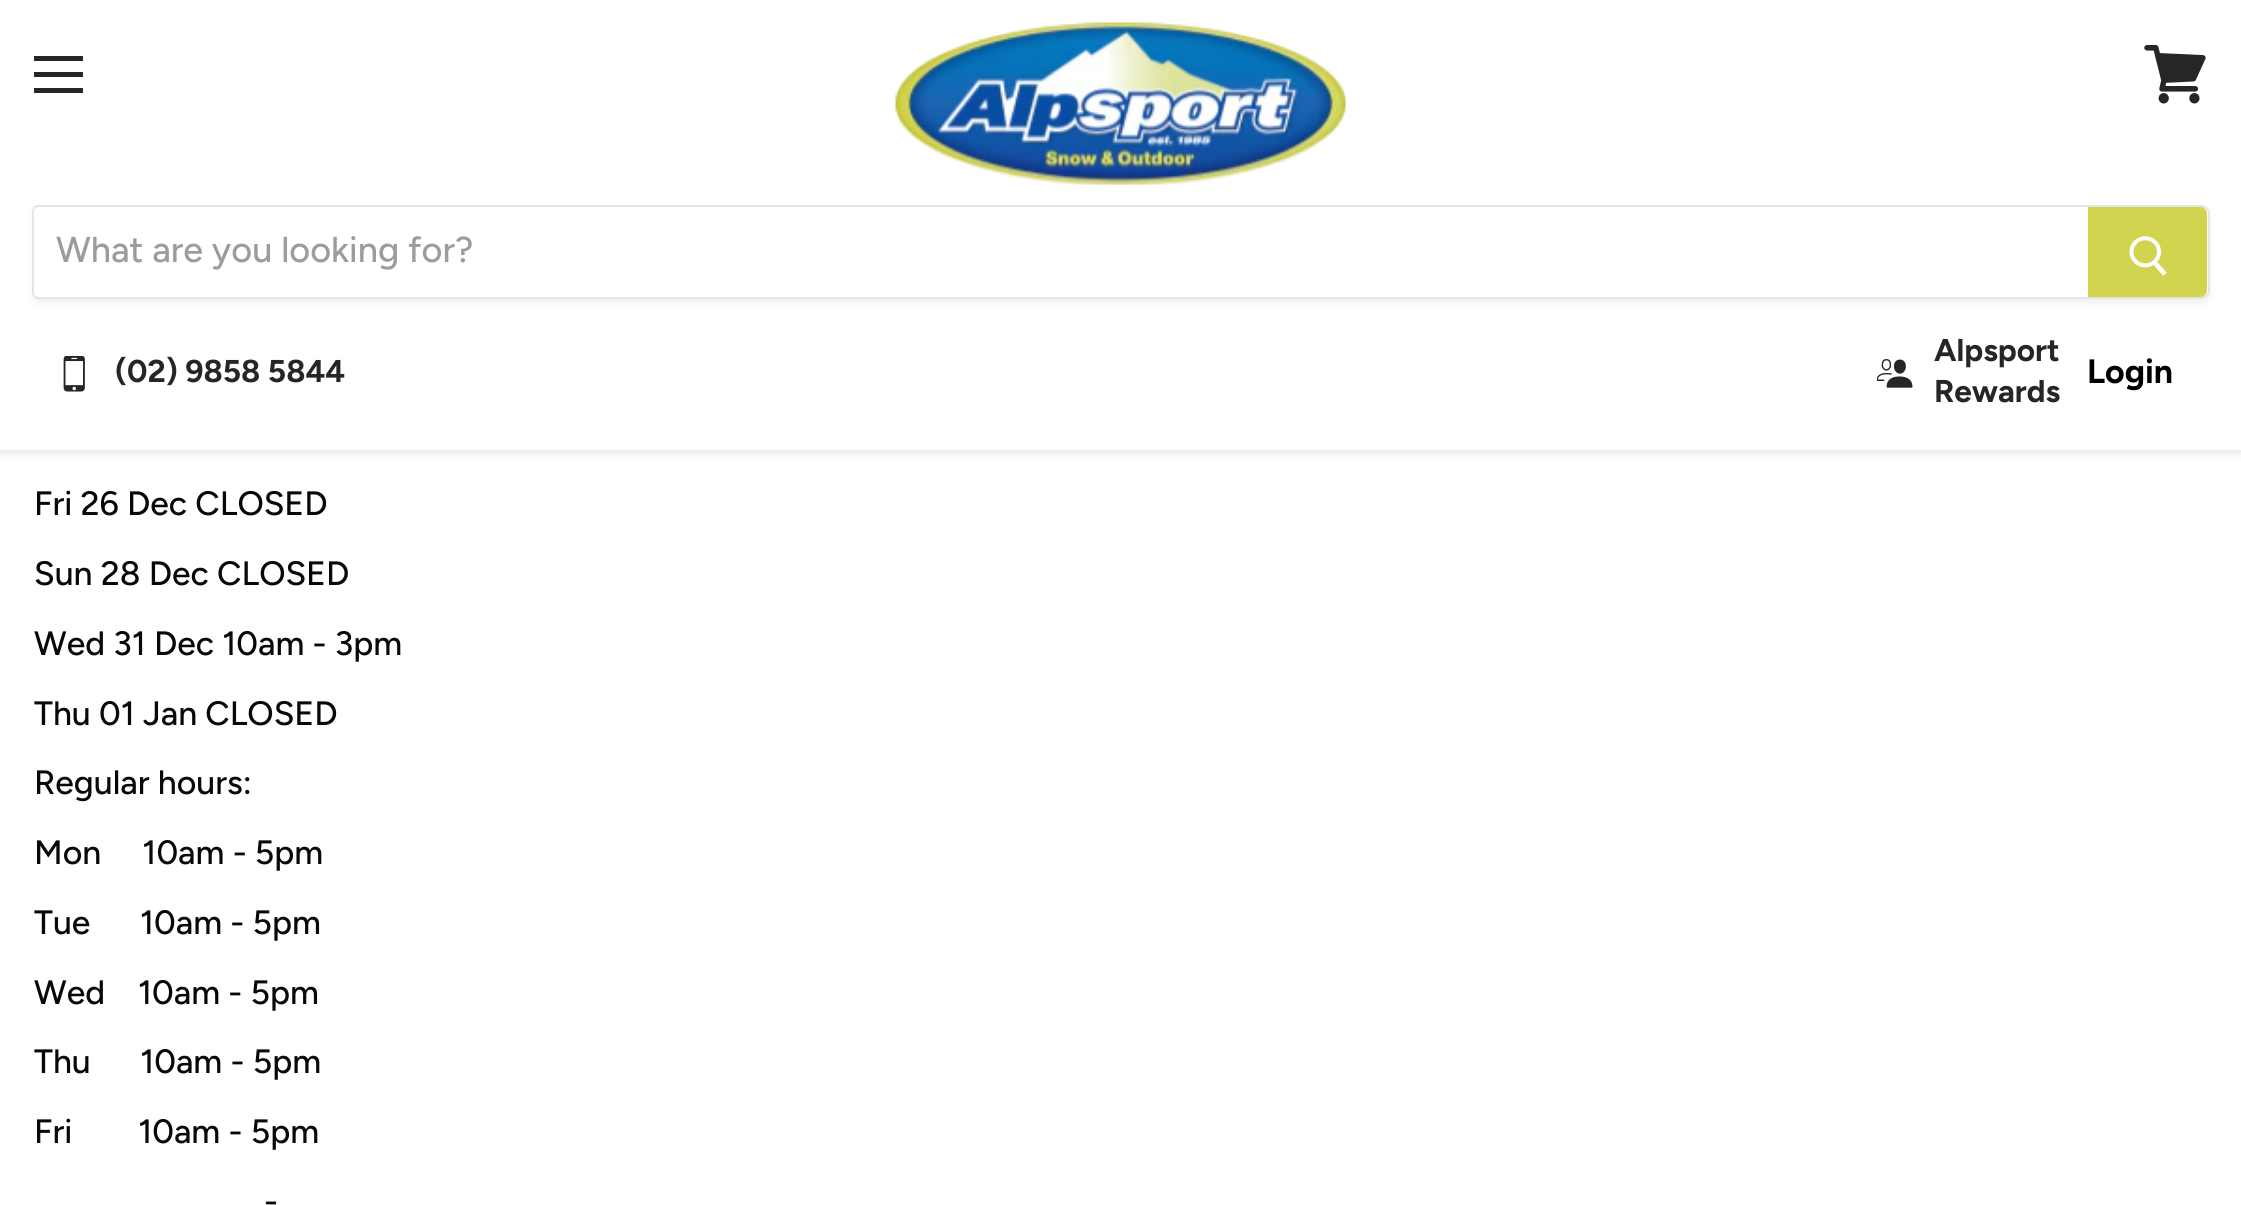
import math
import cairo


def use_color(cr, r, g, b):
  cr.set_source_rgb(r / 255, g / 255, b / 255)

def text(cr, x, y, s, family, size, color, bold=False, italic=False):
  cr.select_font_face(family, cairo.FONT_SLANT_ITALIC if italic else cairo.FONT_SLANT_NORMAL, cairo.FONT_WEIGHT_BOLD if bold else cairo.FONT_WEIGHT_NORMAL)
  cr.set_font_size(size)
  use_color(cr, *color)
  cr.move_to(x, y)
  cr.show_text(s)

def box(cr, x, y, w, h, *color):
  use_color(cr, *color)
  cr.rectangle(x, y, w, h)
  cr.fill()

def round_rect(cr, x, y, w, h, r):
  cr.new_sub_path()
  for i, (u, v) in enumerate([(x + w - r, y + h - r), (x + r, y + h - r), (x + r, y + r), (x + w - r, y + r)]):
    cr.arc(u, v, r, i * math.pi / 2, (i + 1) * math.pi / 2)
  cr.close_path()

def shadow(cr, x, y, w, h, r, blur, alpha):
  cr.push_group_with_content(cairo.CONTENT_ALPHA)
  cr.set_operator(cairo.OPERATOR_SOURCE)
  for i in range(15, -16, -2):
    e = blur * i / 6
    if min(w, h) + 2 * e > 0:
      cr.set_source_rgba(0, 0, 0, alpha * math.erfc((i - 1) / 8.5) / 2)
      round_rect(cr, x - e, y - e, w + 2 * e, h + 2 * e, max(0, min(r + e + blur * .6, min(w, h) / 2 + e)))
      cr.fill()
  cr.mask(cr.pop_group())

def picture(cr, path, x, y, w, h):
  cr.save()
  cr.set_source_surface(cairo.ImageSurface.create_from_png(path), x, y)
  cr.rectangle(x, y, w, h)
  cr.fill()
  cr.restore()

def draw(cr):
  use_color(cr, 255, 255, 255)
  cr.paint()
  use_color(cr, 127, 127, 127)
  shadow(cr, 0, -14, 2241, 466, 0, 4.5, 0.25)
  box(cr, 0, 0, 2241, 450, 255, 255, 255)
  box(cr, 34, 56, 49, 5, 38, 38, 38)
  box(cr, 34, 72, 49, 5, 38, 38, 38)
  box(cr, 34, 88, 49, 5, 38, 38, 38)
  picture(cr, "img_01.png", 2144, 45, 62, 59)
  picture(cr, "img_02.png", 895, 22, 451, 163)
  cr.save()
  cr.set_fill_rule(cairo.FILL_RULE_EVEN_ODD)
  cr.new_path()
  cr.move_to(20, 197)
  cr.line_to(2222, 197)
  cr.line_to(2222, 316)
  cr.line_to(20, 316)
  cr.close_path()
  cr.move_to(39, 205)
  cr.line_to(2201, 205)
  cr.curve_to(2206, 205, 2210, 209, 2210, 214)
  cr.line_to(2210, 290)
  cr.curve_to(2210, 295, 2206, 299, 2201, 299)
  cr.line_to(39, 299)
  cr.curve_to(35, 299, 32, 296, 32, 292)
  cr.line_to(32, 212)
  cr.curve_to(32, 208, 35, 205, 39, 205)
  cr.close_path()
  cr.clip()
  use_color(cr, 127, 127, 127)
  shadow(cr, 32, 209, 2178, 95, 9, 3.5, 0.11)
  cr.restore()
  cr.new_path()
  cr.move_to(39, 206)
  cr.line_to(2201, 206)
  cr.curve_to(2205.5, 206, 2209, 209.5, 2209, 214)
  cr.line_to(2209, 290)
  cr.curve_to(2209, 294.5, 2205.5, 298, 2201, 298)
  cr.line_to(39, 298)
  cr.curve_to(35.5, 298, 33, 295.5, 33, 292)
  cr.line_to(33, 212)
  cr.curve_to(33, 208.5, 35.5, 206, 39, 206)
  cr.close_path()
  cr.set_source_rgba(0.498, 0.498, 0.498, 0.2)
  cr.stroke()
  use_color(cr, 210, 212, 79)
  cr.new_path()
  cr.move_to(2089, 208)
  cr.line_to(2200, 208)
  cr.curve_to(2203.5, 208, 2206, 210.5, 2206, 214)
  cr.line_to(2206, 290)
  cr.curve_to(2206, 293.5, 2203.5, 296, 2200, 296)
  cr.line_to(2089, 296)
  cr.close_path()
  cr.fill_preserve()
  cr.stroke()
  picture(cr, "img_03.png", 2129, 236, 38, 40)
  picture(cr, "img_04.png", 63, 356, 22, 36)
  picture(cr, "img_05.png", 1877, 359, 36, 29)
  text(cr, 56, 262, "What are you looking for?", "Figtree Medium", 36, (156, 156, 156))
  text(cr, 115, 382, "(02) 9858 5844", "Figtree", 31.5, (38, 38, 38), bold=True)
  text(cr, 1934, 361, "Alpsport", "Figtree", 31.5, (38, 38, 38), bold=True)
  text(cr, 1934, 402, "Rewards", "Figtree", 31.5, (38, 38, 38), bold=True)
  text(cr, 2087, 383, "Login", "Figtree", 33.75, (0, 0, 0), bold=True)
  text(cr, 34, 515, "Fri 26 Dec CLOSED", "Figtree Medium", 33.75, (8, 8, 8))
  text(cr, 34, 585, "Sun 28 Dec CLOSED", "Figtree Medium", 33.75, (8, 8, 8))
  text(cr, 34, 655, "Wed 31 Dec 10am - 3pm", "Figtree Medium", 33.75, (8, 8, 8))
  text(cr, 34, 725, "Thu 01 Jan CLOSED", "Figtree Medium", 33.75, (8, 8, 8))
  text(cr, 34, 794, "Regular hours:", "Figtree Medium", 33.75, (8, 8, 8))
  text(cr, 34, 864, "Mon     10am - 5pm", "Figtree Medium", 33.75, (8, 8, 8))
  text(cr, 34, 934, "Tue", "Figtree Medium", 33.75, (8, 8, 8))
  text(cr, 140, 934, "10am - 5pm", "Figtree Medium", 33.75, (8, 8, 8))
  text(cr, 34, 1004, "Wed", "Figtree Medium", 33.75, (8, 8, 8))
  text(cr, 138, 1004, "10am - 5pm", "Figtree Medium", 33.75, (8, 8, 8))
  text(cr, 34, 1073, "Thu      10am - 5pm", "Figtree Medium", 33.75, (8, 8, 8))
  text(cr, 34, 1143, "Fri        10am - 5pm", "Figtree Medium", 33.75, (8, 8, 8))
  text(cr, 264, 1213, "-", "Figtree Medium", 33.75, (8, 8, 8))


surface = cairo.ImageSurface(cairo.FORMAT_RGB24, 2241, 1205)
cr = cairo.Context(surface)
options = cairo.FontOptions()
options.set_hint_metrics(cairo.HINT_METRICS_OFF)
options.set_hint_style(cairo.HINT_STYLE_NONE)
cr.set_font_options(options)
cr.set_miter_limit(4)
draw(cr)
surface.write_to_png("out.png")
